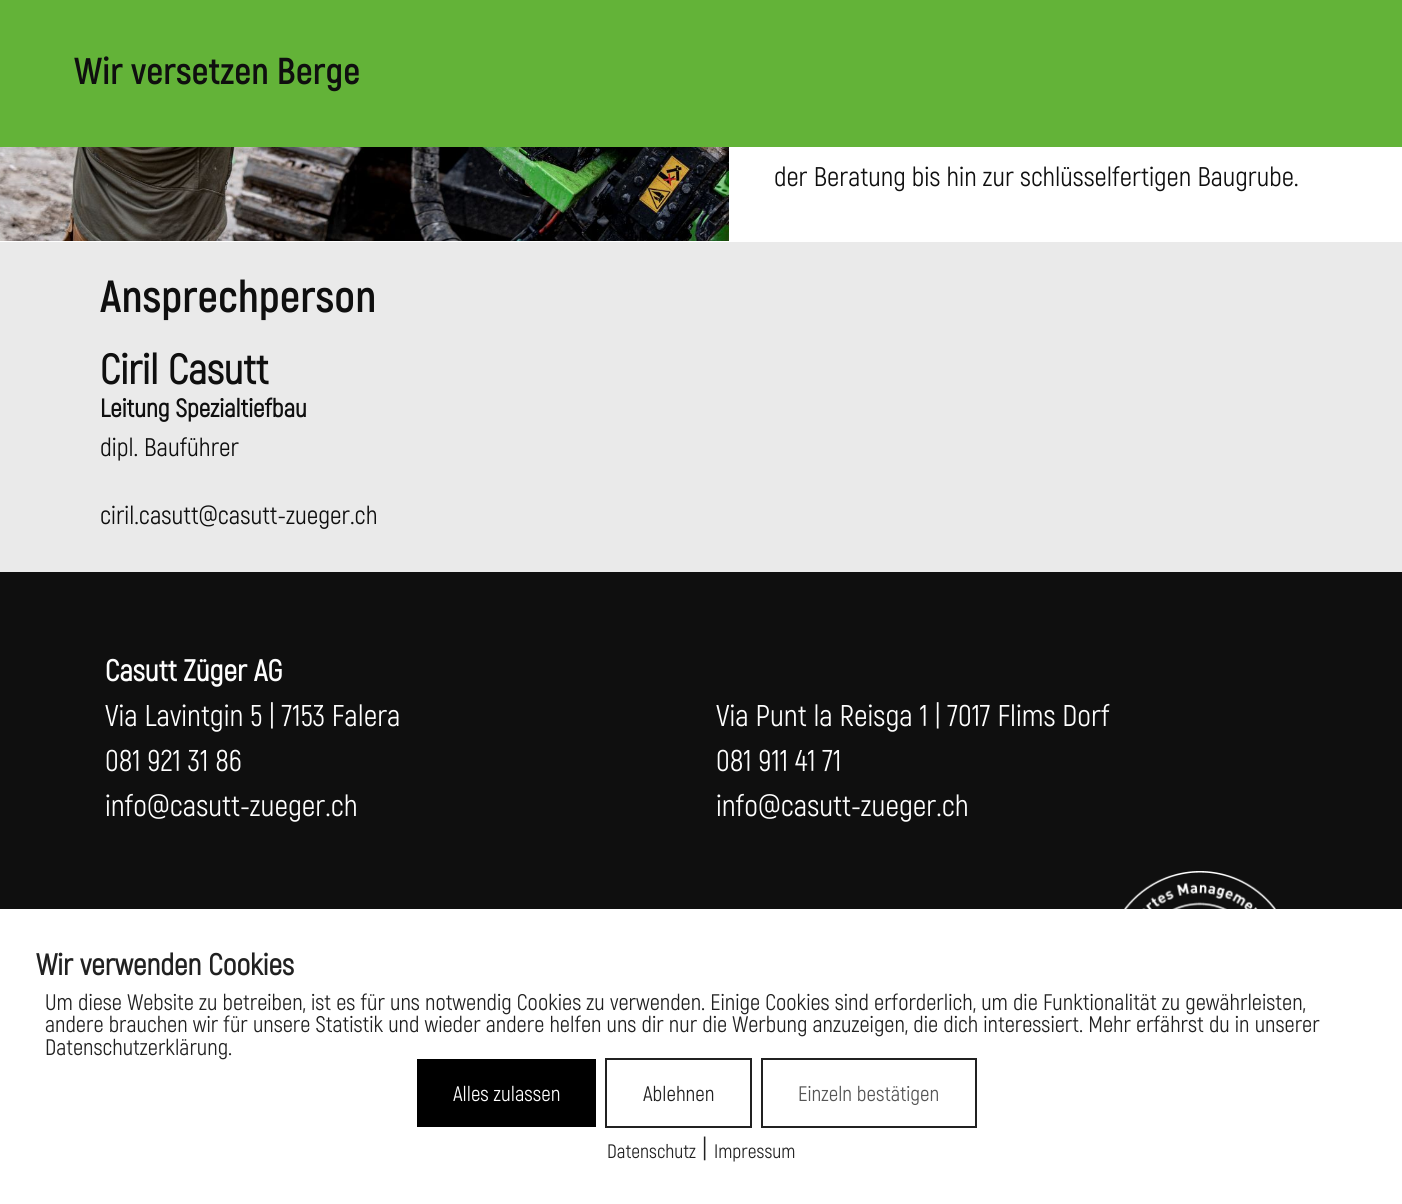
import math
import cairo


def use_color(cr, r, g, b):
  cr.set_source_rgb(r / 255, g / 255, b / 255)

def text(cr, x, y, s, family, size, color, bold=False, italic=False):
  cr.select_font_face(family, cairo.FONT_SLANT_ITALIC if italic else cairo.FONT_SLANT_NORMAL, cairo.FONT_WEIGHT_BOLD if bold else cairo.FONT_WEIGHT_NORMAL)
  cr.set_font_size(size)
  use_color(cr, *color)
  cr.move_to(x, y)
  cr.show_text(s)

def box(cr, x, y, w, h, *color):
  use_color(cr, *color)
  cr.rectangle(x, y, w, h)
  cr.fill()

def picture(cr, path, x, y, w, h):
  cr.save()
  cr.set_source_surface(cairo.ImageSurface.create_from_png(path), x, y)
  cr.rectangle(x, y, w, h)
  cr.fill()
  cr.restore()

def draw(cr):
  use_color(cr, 255, 255, 255)
  cr.paint()
  box(cr, 0, 0, 1402, 147, 99, 179, 56)
  picture(cr, "img_01.png", 0, 147, 729, 94)
  box(cr, 0, 242, 1402, 330, 234, 234, 234)
  box(cr, 0, 572, 1402, 337, 15, 15, 15)
  picture(cr, "img_02.png", 1124, 871, 152, 38)
  box(cr, 417, 1059, 179, 68, 0, 0, 0)
  cr.rectangle(606, 1059, 145, 68)
  use_color(cr, 33, 33, 33)
  cr.stroke()
  cr.rectangle(762, 1059, 214, 68)
  cr.stroke()
  text(cr, 74, 84, "Wir versetzen Berge", "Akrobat", 37.5, (15, 15, 15), bold=True)
  text(cr, 774, 186, "der Beratung bis hin zur schlüsselfertigen Baugrube.", "Akrobat", 27, (15, 15, 15))
  text(cr, 100, 312, "Ansprechperson", "Akrobat", 45, (15, 15, 15), bold=True)
  text(cr, 100, 384, "Ciril Casutt", "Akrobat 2", 42, (15, 15, 15), bold=True)
  text(cr, 100, 417, "Leitung Spezialtiefbau", "Akrobat 2", 25.5, (15, 15, 15), bold=True)
  text(cr, 100, 456, "dipl. Bauführer", "Akrobat", 25.5, (15, 15, 15))
  text(cr, 100, 524, "ciril.casutt@casutt-zueger.ch", "Akrobat", 25.5, (15, 15, 15))
  text(cr, 105, 681, "Casutt Züger AG", "Akrobat 2", 30, (254, 254, 254), bold=True)
  text(cr, 105, 726, "Via Lavintgin 5 | 7153 Falera", "Akrobat", 30, (254, 254, 254))
  text(cr, 105, 771, "081 921 31 86", "Akrobat", 30, (254, 254, 254))
  text(cr, 105, 816, "info@casutt-zueger.ch", "Akrobat", 30, (254, 254, 254))
  text(cr, 716, 726, "Via Punt la Reisga 1 | 7017 Flims Dorf", "Akrobat", 30, (254, 254, 254))
  text(cr, 716, 771, "081 911 41 71", "Akrobat", 30, (254, 254, 254))
  text(cr, 716, 816, "info@casutt-zueger.ch", "Akrobat", 30, (254, 254, 254))
  text(cr, 36, 975, "Wir verwenden Cookies", "Akrobat 2", 30, (33, 33, 33), bold=True)
  text(cr, 45, 1010, "Um diese Website zu betreiben, ist es für uns notwendig Cookies zu verwenden. Einige Cookies sind erforderlich, um die Funktionalität zu gewährleisten,", "Akrobat", 22.5, (33, 33, 33))
  text(cr, 45, 1032, "andere brauchen wir für unsere Statistik und wieder andere helfen uns dir nur die Werbung anzuzeigen, die dich interessiert. Mehr erfährst du in unserer", "Akrobat", 22.5, (33, 33, 33))
  text(cr, 45, 1055, "Datenschutzerklärung.", "Akrobat", 22.5, (33, 33, 33))
  text(cr, 453, 1101, "Alles zulassen", "Akrobat", 21, (254, 254, 254))
  text(cr, 643, 1101, "Ablehnen", "Akrobat", 21, (33, 33, 33))
  text(cr, 798, 1101, "Einzeln bestätigen", "Akrobat", 21, (85, 85, 85))
  text(cr, 607, 1158, "Datenschutz", "Akrobat", 19.5, (33, 33, 33))
  text(cr, 702, 1158, "|", "Akrobat", 27, (33, 33, 33))
  text(cr, 714, 1158, "Impressum", "Akrobat", 19.5, (33, 33, 33))


surface = cairo.ImageSurface(cairo.FORMAT_RGB24, 1402, 1204)
cr = cairo.Context(surface)
options = cairo.FontOptions()
options.set_hint_metrics(cairo.HINT_METRICS_OFF)
options.set_hint_style(cairo.HINT_STYLE_NONE)
cr.set_font_options(options)
cr.set_miter_limit(4)
draw(cr)
surface.write_to_png("out.png")
